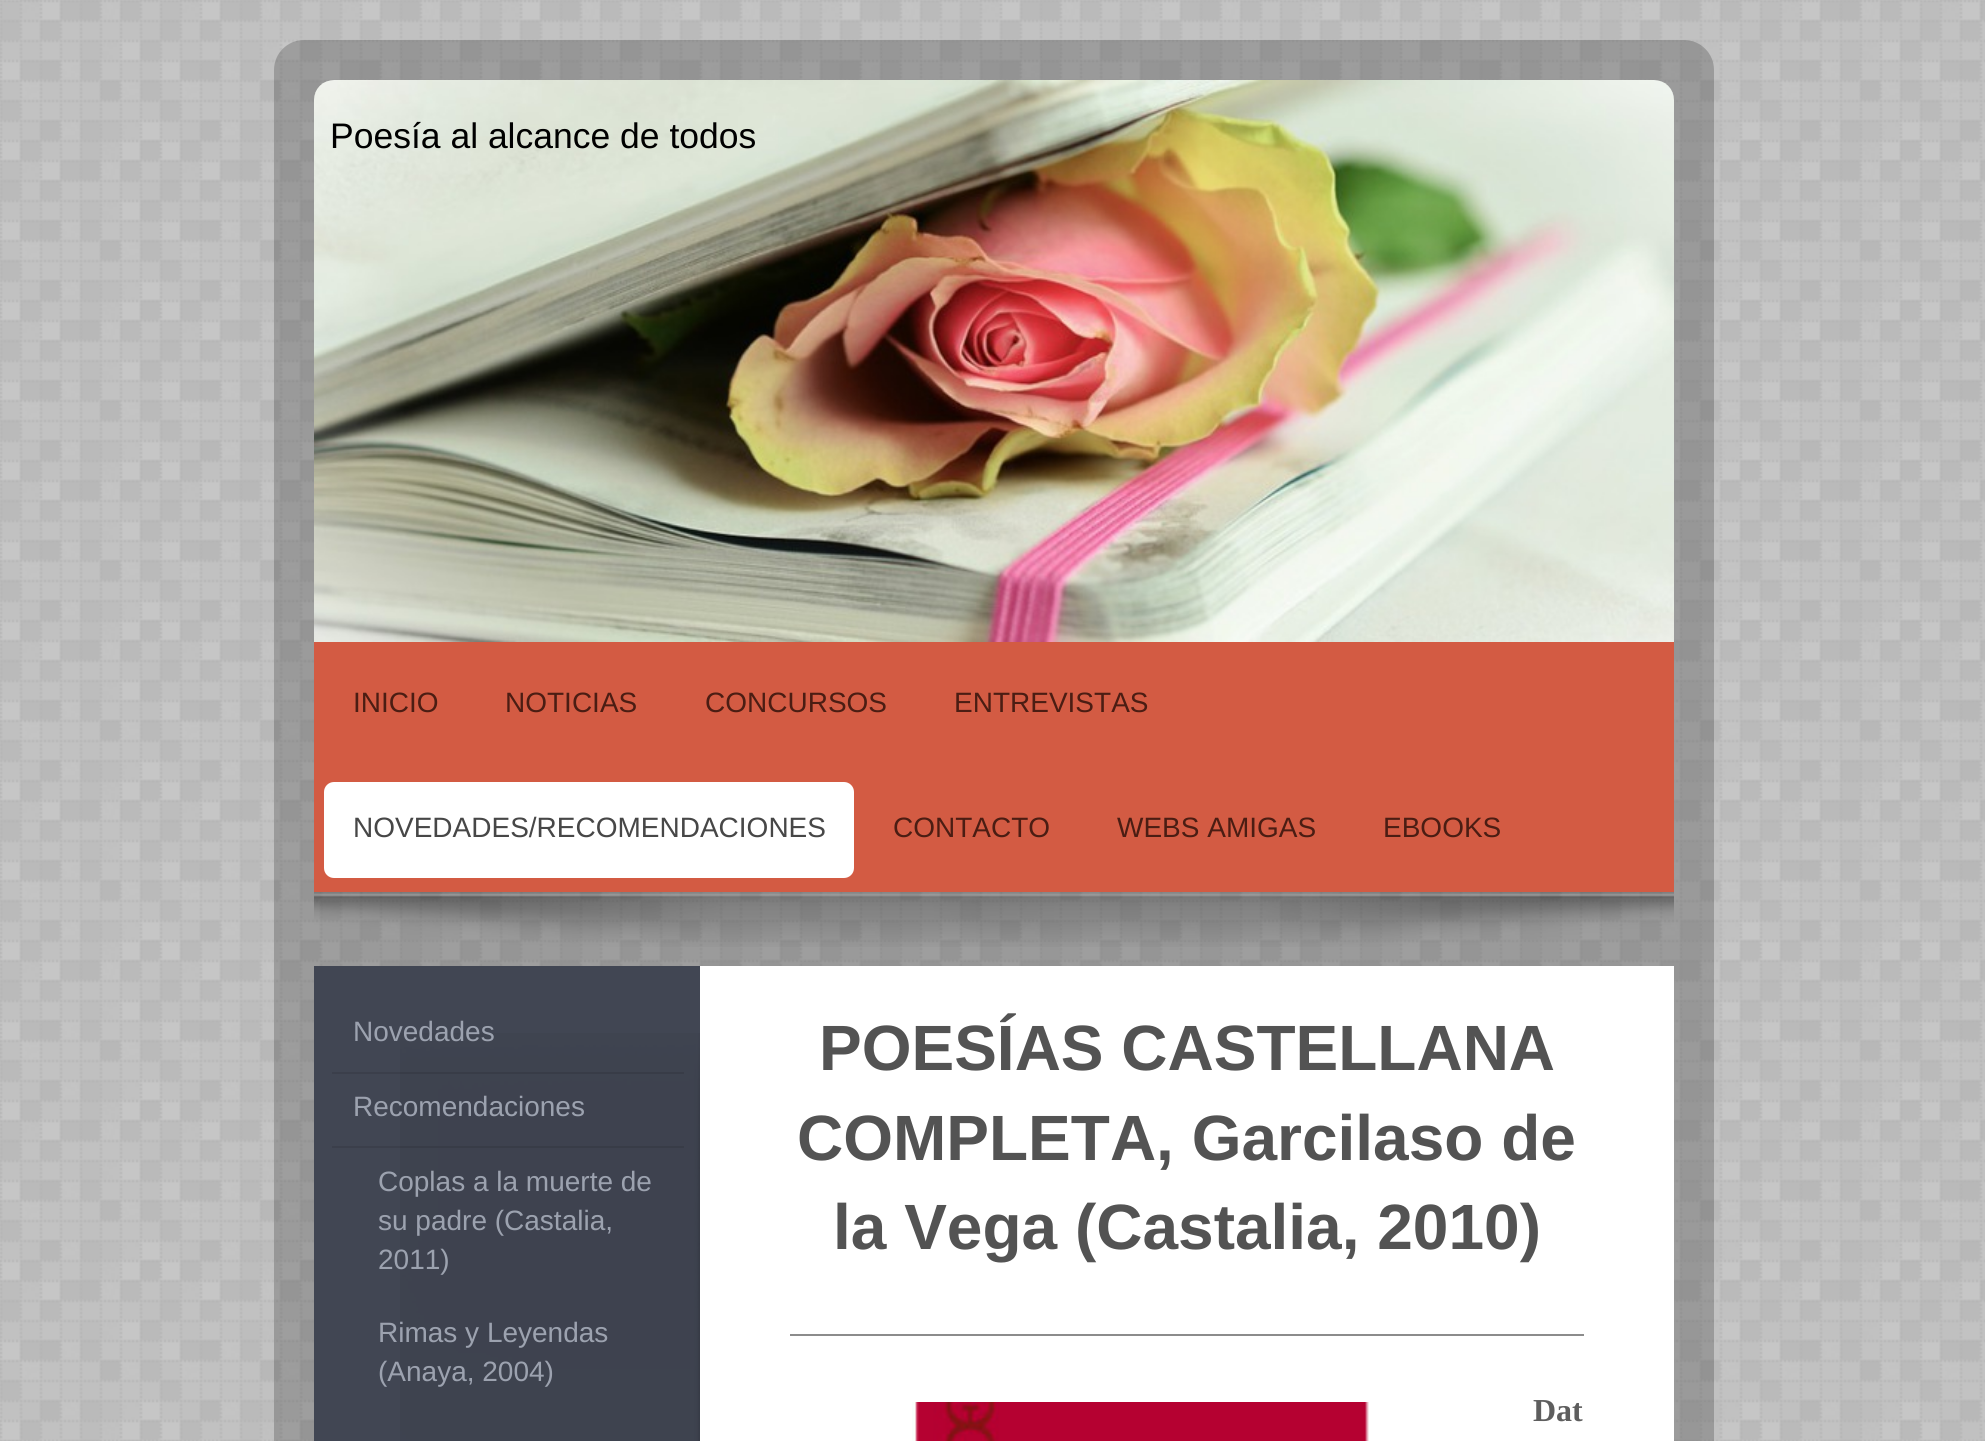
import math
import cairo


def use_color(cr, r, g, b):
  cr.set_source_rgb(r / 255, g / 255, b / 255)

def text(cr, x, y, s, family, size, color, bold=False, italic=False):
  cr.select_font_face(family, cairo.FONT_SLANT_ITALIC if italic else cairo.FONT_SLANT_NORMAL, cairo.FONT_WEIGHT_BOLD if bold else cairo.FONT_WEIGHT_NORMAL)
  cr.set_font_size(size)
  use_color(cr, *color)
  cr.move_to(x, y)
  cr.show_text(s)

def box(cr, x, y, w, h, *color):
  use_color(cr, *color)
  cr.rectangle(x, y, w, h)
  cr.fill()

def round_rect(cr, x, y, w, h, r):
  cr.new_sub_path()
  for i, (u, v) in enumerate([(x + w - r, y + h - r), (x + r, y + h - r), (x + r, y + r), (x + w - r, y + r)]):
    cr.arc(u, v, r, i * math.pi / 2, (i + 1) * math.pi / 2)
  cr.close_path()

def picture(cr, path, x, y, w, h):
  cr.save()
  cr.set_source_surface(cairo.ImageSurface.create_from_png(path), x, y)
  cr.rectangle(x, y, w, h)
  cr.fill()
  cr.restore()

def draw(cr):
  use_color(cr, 255, 255, 255)
  cr.paint()
  picture(cr, "img_01.png", 0, 0, 1985, 1441)
  cr.set_source_rgba(0, 0, 0, 0.2)
  round_rect(cr, 274, 40, 1440, 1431, 30)
  cr.fill()
  use_color(cr, 160, 160, 160)
  cr.new_path()
  cr.move_to(334, 80)
  cr.line_to(1654, 80)
  cr.curve_to(1665, 80, 1674, 89, 1674, 100)
  cr.line_to(1674, 642)
  cr.line_to(314, 642)
  cr.line_to(314, 100)
  cr.curve_to(314, 89, 323, 80, 334, 80)
  cr.close_path()
  cr.fill()
  picture(cr, "img_02.png", 314, 80, 1360, 562)
  picture(cr, "img_03.png", 314, 892, 1360, 55)
  box(cr, 314, 642, 1360, 250, 211, 91, 67)
  use_color(cr, 255, 255, 255)
  round_rect(cr, 324, 782, 530, 96, 10)
  cr.fill()
  box(cr, 700, 966, 974, 475, 255, 255, 255)
  box(cr, 314, 966, 386, 475, 65, 70, 83)
  box(cr, 790, 1334, 794, 2, 140, 140, 140)
  picture(cr, "img_04.png", 912, 1402, 457, 39)
  picture(cr, "img_05.png", 400, 1033, 300, 408)
  cr.set_source_rgba(0, 0, 0, 0.1)
  cr.rectangle(332, 1072, 352, 2)
  cr.fill()
  cr.rectangle(332, 1146, 352, 2)
  cr.fill()
  text(cr, 330, 148, "Poesía al alcance de todos", "Liberation Sans", 35.5, (0, 0, 0))
  text(cr, 353, 712, "INICIO", "Liberation Sans", 28, (75, 29, 19))
  text(cr, 505, 712, "NOTICIAS", "Liberation Sans", 28, (75, 29, 19))
  text(cr, 705, 712, "CONCURSOS", "Liberation Sans", 28, (75, 29, 19))
  text(cr, 954, 712, "ENTREVISTAS", "Liberation Sans", 28, (75, 29, 19))
  text(cr, 353, 837, "NOVEDADES/RECOMENDACIONES", "Liberation Sans", 28, (71, 71, 71))
  text(cr, 893, 837, "CONTACTO", "Liberation Sans", 28, (75, 29, 19))
  text(cr, 1117, 837, "WEBS AMIGAS", "Liberation Sans", 28, (75, 29, 19))
  text(cr, 1383, 837, "EBOOKS", "Liberation Sans", 28, (75, 29, 19))
  text(cr, 819, 1070, "POESÍAS CASTELLANA", "Liberation Sans", 64, (83, 83, 83), bold=True)
  text(cr, 797, 1160, "COMPLETA, Garcilaso de", "Liberation Sans", 64, (83, 83, 83), bold=True)
  text(cr, 833, 1249, "la Vega (Castalia, 2010)", "Liberation Sans", 64, (83, 83, 83), bold=True)
  text(cr, 1533, 1421, "Dat", "Liberation Serif", 32, (94, 94, 94), bold=True)
  text(cr, 353, 1041, "Novedades", "Liberation Sans", 28, (156, 162, 175))
  text(cr, 353, 1116, "Recomendaciones", "Liberation Sans", 28, (156, 162, 175))
  text(cr, 378, 1191, "Coplas a la muerte de", "Liberation Sans", 28, (156, 162, 175))
  text(cr, 378, 1230, "su padre (Castalia,", "Liberation Sans", 28, (156, 162, 175))
  text(cr, 378, 1269, "2011)", "Liberation Sans", 28, (156, 162, 175))
  text(cr, 378, 1342, "Rimas y Leyendas", "Liberation Sans", 28, (156, 162, 175))
  text(cr, 378, 1381, "(Anaya, 2004)", "Liberation Sans", 28, (156, 162, 175))


surface = cairo.ImageSurface(cairo.FORMAT_RGB24, 1985, 1441)
cr = cairo.Context(surface)
options = cairo.FontOptions()
options.set_hint_metrics(cairo.HINT_METRICS_OFF)
options.set_hint_style(cairo.HINT_STYLE_NONE)
cr.set_font_options(options)
cr.set_miter_limit(4)
draw(cr)
surface.write_to_png("out.png")
